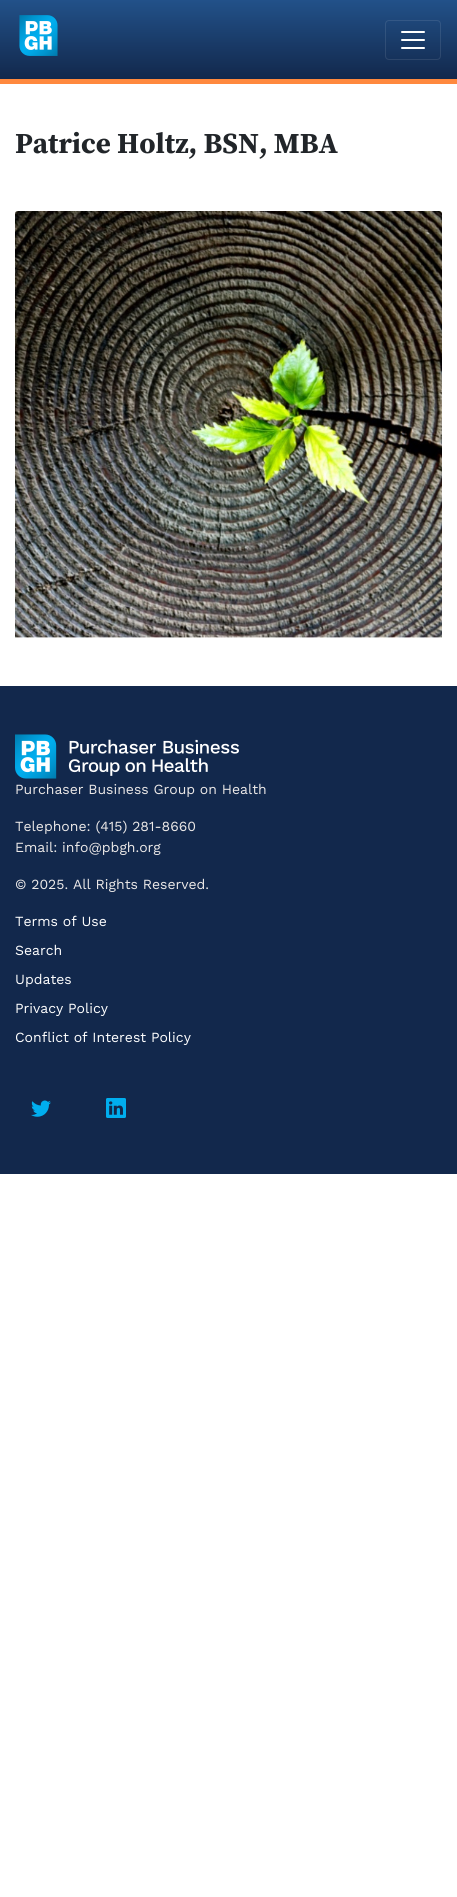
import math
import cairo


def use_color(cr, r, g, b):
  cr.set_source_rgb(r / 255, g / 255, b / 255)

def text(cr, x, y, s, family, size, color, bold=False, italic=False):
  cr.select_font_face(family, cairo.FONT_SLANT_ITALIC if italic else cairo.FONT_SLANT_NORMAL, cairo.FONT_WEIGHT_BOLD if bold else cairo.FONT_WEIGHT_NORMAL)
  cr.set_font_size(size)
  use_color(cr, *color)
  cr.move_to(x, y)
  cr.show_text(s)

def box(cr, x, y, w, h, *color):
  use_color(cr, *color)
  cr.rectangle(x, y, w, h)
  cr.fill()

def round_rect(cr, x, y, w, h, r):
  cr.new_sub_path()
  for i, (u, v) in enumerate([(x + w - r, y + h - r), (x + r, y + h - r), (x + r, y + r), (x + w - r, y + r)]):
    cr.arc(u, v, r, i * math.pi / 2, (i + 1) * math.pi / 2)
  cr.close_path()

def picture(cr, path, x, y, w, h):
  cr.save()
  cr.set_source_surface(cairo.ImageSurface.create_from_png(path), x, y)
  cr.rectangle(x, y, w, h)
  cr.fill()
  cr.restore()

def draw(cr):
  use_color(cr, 255, 255, 255)
  cr.paint()
  gradient = cairo.LinearGradient(229, 0, 229, 79)
  gradient.add_color_stop_rgba(0, 0.133, 0.318, 0.537, 1)
  gradient.add_color_stop_rgba(1, 0.071, 0.157, 0.298, 1)
  cr.set_source(gradient)
  cr.rectangle(0, 0, 457, 79)
  cr.fill()
  box(cr, 0, 79, 457, 5, 255, 137, 62)
  picture(cr, "img_01.png", 19, 15, 39, 41)
  round_rect(cr, 385.5, 20.5, 55, 39, 3.5)
  cr.set_source_rgba(1, 1, 1, 0.1)
  cr.set_line_width(1)
  cr.stroke()
  picture(cr, "img_02.png", 401, 31, 24, 18)
  picture(cr, "img_03.png", 15, 211, 427, 427)
  box(cr, 0, 686, 457, 488, 18, 40, 76)
  picture(cr, "img_04.png", 15, 734, 224, 45)
  picture(cr, "img_05.png", 31, 1100, 20, 17)
  picture(cr, "img_06.png", 106, 1098, 20, 20)
  text(cr, 15, 153, "Patrice Holtz, BSN, MBA", "Source Serif Pro", 28.9, (33, 37, 41), bold=True)
  text(cr, 15, 794, "Purchaser Business Group on Health", "Work Sans", 14, (236, 233, 232))
  text(cr, 15, 831, "Telephone: (415) 281-8660", "Work Sans", 14, (236, 233, 232))
  text(cr, 15, 852, "Email: info@pbgh.org", "Work Sans", 14, (236, 233, 232))
  text(cr, 15, 889, "© 2025. All Rights Reserved.", "Work Sans", 14, (236, 233, 232))
  text(cr, 15, 926, "Terms of Use", "Work Sans", 14, (255, 255, 255))
  text(cr, 15, 955, "Search", "Work Sans", 14, (255, 255, 255))
  text(cr, 15, 984, "Updates", "Work Sans", 14, (255, 255, 255))
  text(cr, 15, 1013, "Privacy Policy", "Work Sans", 14, (255, 255, 255))
  text(cr, 15, 1042, "Conflict of Interest Policy", "Work Sans", 14, (255, 255, 255))


surface = cairo.ImageSurface(cairo.FORMAT_RGB24, 457, 1897)
cr = cairo.Context(surface)
options = cairo.FontOptions()
options.set_hint_metrics(cairo.HINT_METRICS_OFF)
options.set_hint_style(cairo.HINT_STYLE_NONE)
cr.set_font_options(options)
cr.set_miter_limit(4)
draw(cr)
surface.write_to_png("out.png")
